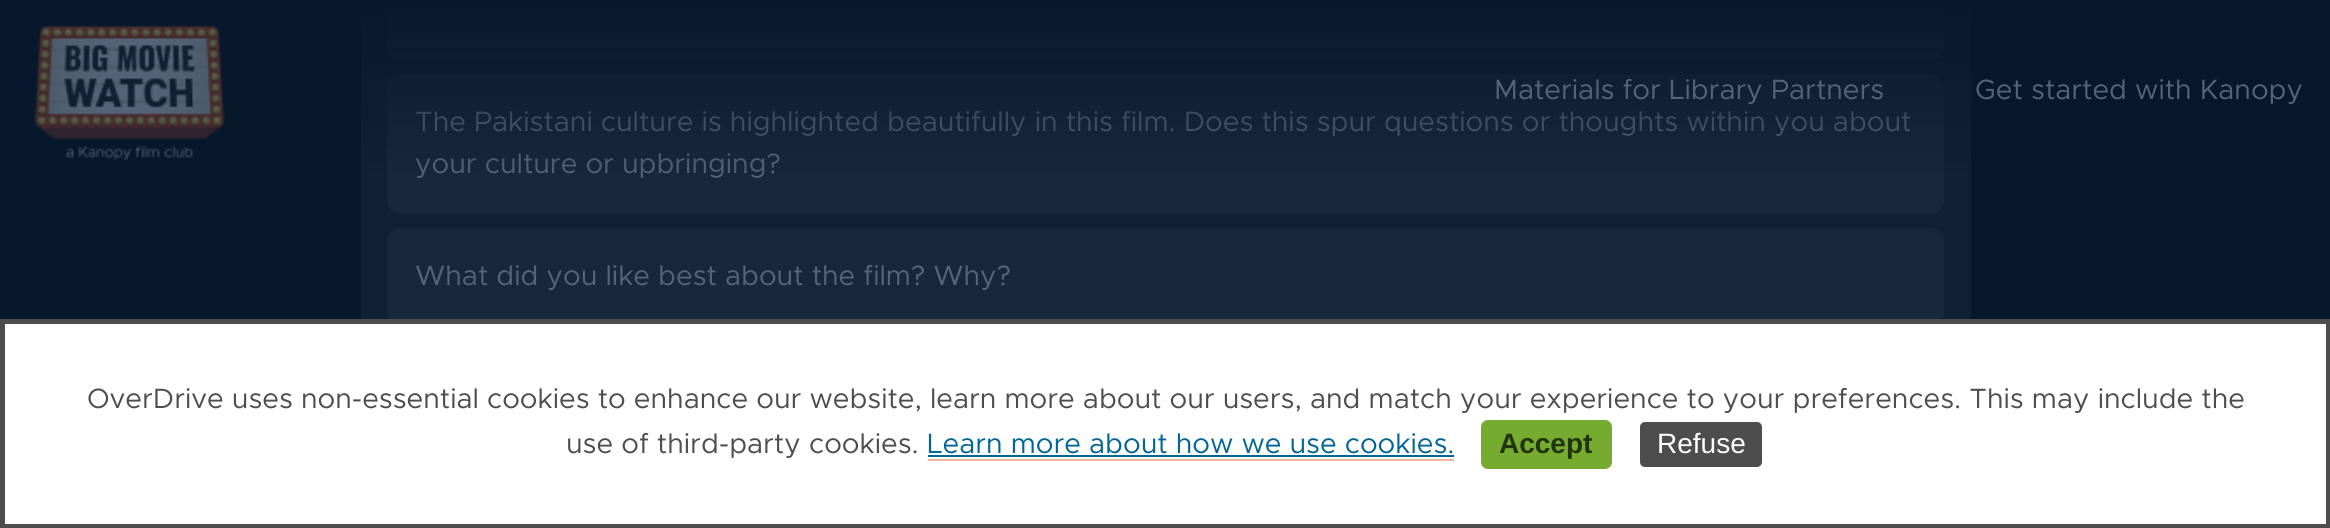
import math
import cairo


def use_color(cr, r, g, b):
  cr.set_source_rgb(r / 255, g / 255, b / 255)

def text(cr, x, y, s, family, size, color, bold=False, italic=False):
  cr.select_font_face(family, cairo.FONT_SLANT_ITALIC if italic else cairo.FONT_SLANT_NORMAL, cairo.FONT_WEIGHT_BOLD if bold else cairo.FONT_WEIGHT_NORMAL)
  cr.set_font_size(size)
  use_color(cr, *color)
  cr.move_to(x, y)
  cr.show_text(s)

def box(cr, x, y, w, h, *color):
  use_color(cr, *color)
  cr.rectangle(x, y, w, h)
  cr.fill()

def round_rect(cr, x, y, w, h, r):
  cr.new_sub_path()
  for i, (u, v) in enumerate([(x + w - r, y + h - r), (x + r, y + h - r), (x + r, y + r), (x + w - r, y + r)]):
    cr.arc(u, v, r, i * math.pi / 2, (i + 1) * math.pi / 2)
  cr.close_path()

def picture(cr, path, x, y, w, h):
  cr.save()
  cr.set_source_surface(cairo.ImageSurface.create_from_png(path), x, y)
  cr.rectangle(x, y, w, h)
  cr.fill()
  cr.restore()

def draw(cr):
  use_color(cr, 7, 24, 45)
  cr.paint()
  picture(cr, "img_01.png", 34, 25, 191, 137)
  box(cr, 361, 0, 1610, 319, 16, 33, 54)
  use_color(cr, 23, 40, 61)
  round_rect(cr, 387, -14, 1557, 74, 14)
  cr.fill()
  round_rect(cr, 387, 74, 1557, 140, 14)
  cr.fill()
  round_rect(cr, 387, 228, 1557, 98, 14)
  cr.fill()
  use_color(cr, 255, 255, 255)
  cr.rectangle(2.5, 321.5, 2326, 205)
  cr.fill_preserve()
  use_color(cr, 77, 77, 77)
  cr.set_line_width(5)
  cr.stroke()
  box(cr, 928, 459, 526, 2, 242, 180, 156)
  box(cr, 928, 455, 526, 2, 0, 101, 149)
  use_color(cr, 117, 171, 47)
  round_rect(cr, 1482, 421, 129, 47, 6)
  cr.fill_preserve()
  cr.set_line_width(2)
  cr.stroke()
  use_color(cr, 77, 77, 77)
  round_rect(cr, 1639, 421, 124, 47, 6)
  cr.fill_preserve()
  use_color(cr, 255, 255, 255)
  cr.stroke()
  text(cr, 1975, 99, "Get started with Kanopy", "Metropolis", 28, (84, 100, 121))
  text(cr, 415, 131, "The Pakistani culture is highlighted beautifully in this film. Does this spur questions or thoughts within you about", "Metropolis", 28, (84, 100, 121))
  text(cr, 415, 173, "your culture or upbringing?", "Metropolis", 28, (84, 100, 121))
  gradient = cairo.LinearGradient(1166, 0, 1166, 180)
  gradient.add_color_stop_rgba(0, 0.027, 0.094, 0.176, 0.95)
  gradient.add_color_stop_rgba(1, 0.027, 0.094, 0.176, 0)
  cr.set_source(gradient)
  cr.rectangle(361, 0, 1610, 174)
  cr.fill()
  text(cr, 1494, 99, "Materials for Library Partners", "Metropolis", 28, (84, 100, 121))
  text(cr, 415, 285, "What did you like best about the film? Why?", "Metropolis", 28, (84, 100, 121))
  text(cr, 87, 408, "OverDrive uses non-essential cookies to enhance our website, learn more about our users, and match your experience to your preferences. This may include the", "Metropolis", 28, (77, 77, 77))
  text(cr, 566, 453, "use of third-party cookies.", "Metropolis", 28, (77, 77, 77))
  text(cr, 927, 453, "Learn more about how we use cookies.", "Metropolis", 28, (0, 101, 149))
  text(cr, 1499, 453, "Accept", "Liberation Sans", 28, (35, 51, 14), bold=True)
  text(cr, 1657, 453, "Refuse", "Liberation Sans", 28, (255, 255, 255))


surface = cairo.ImageSurface(cairo.FORMAT_RGB24, 2330, 528)
cr = cairo.Context(surface)
options = cairo.FontOptions()
options.set_hint_metrics(cairo.HINT_METRICS_OFF)
options.set_hint_style(cairo.HINT_STYLE_NONE)
cr.set_font_options(options)
cr.set_miter_limit(4)
draw(cr)
surface.write_to_png("out.png")
